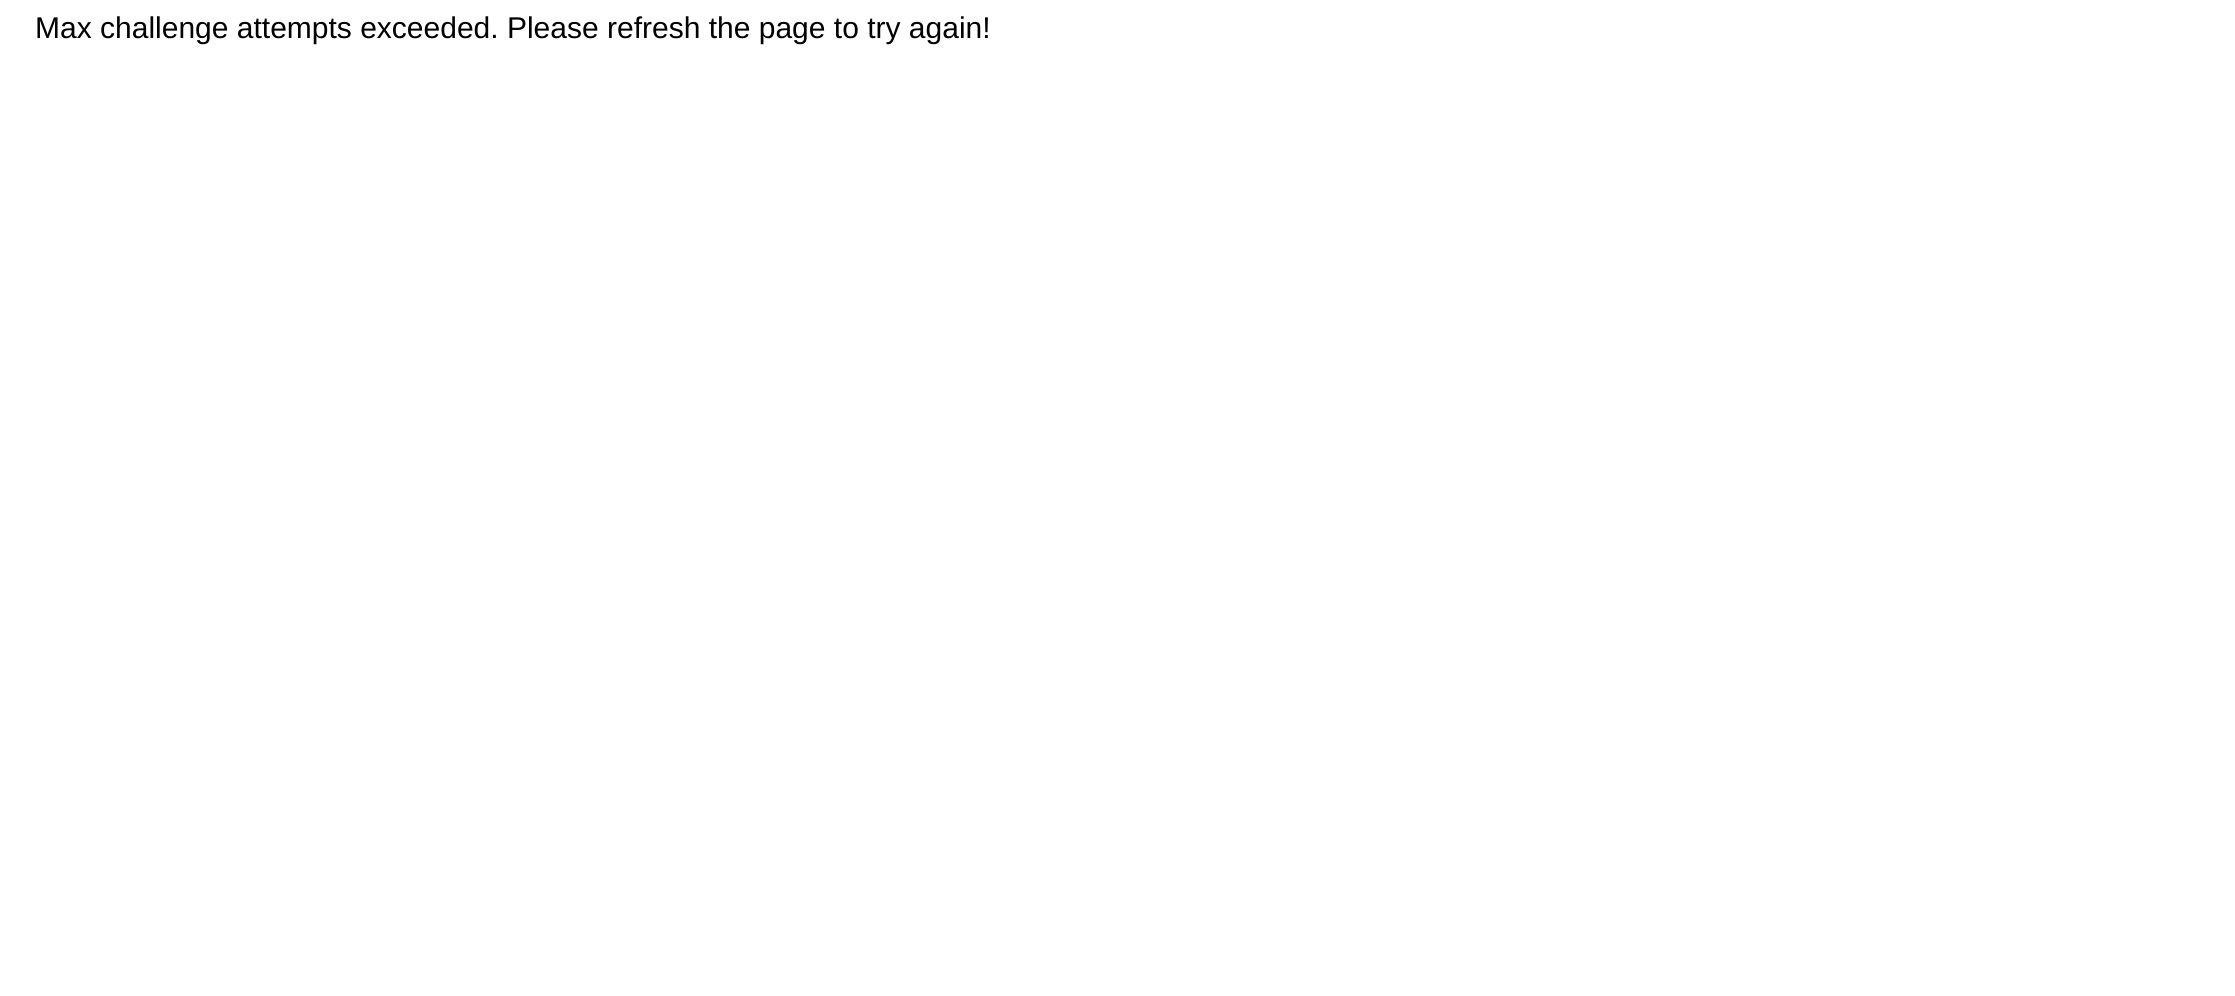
import math
import cairo


def use_color(cr, r, g, b):
  cr.set_source_rgb(r / 255, g / 255, b / 255)

def text(cr, x, y, s, family, size, color, bold=False, italic=False):
  cr.select_font_face(family, cairo.FONT_SLANT_ITALIC if italic else cairo.FONT_SLANT_NORMAL, cairo.FONT_WEIGHT_BOLD if bold else cairo.FONT_WEIGHT_NORMAL)
  cr.set_font_size(size)
  use_color(cr, *color)
  cr.move_to(x, y)
  cr.show_text(s)

def draw(cr):
  use_color(cr, 255, 255, 255)
  cr.paint()
  text(cr, 35, 38, "Max challenge attempts exceeded. Please refresh the page to try again!", "Liberation Sans", 30, (0, 0, 0))


surface = cairo.ImageSurface(cairo.FORMAT_RGB24, 2235, 996)
cr = cairo.Context(surface)
options = cairo.FontOptions()
options.set_hint_metrics(cairo.HINT_METRICS_OFF)
options.set_hint_style(cairo.HINT_STYLE_NONE)
cr.set_font_options(options)
cr.set_miter_limit(4)
draw(cr)
surface.write_to_png("out.png")
